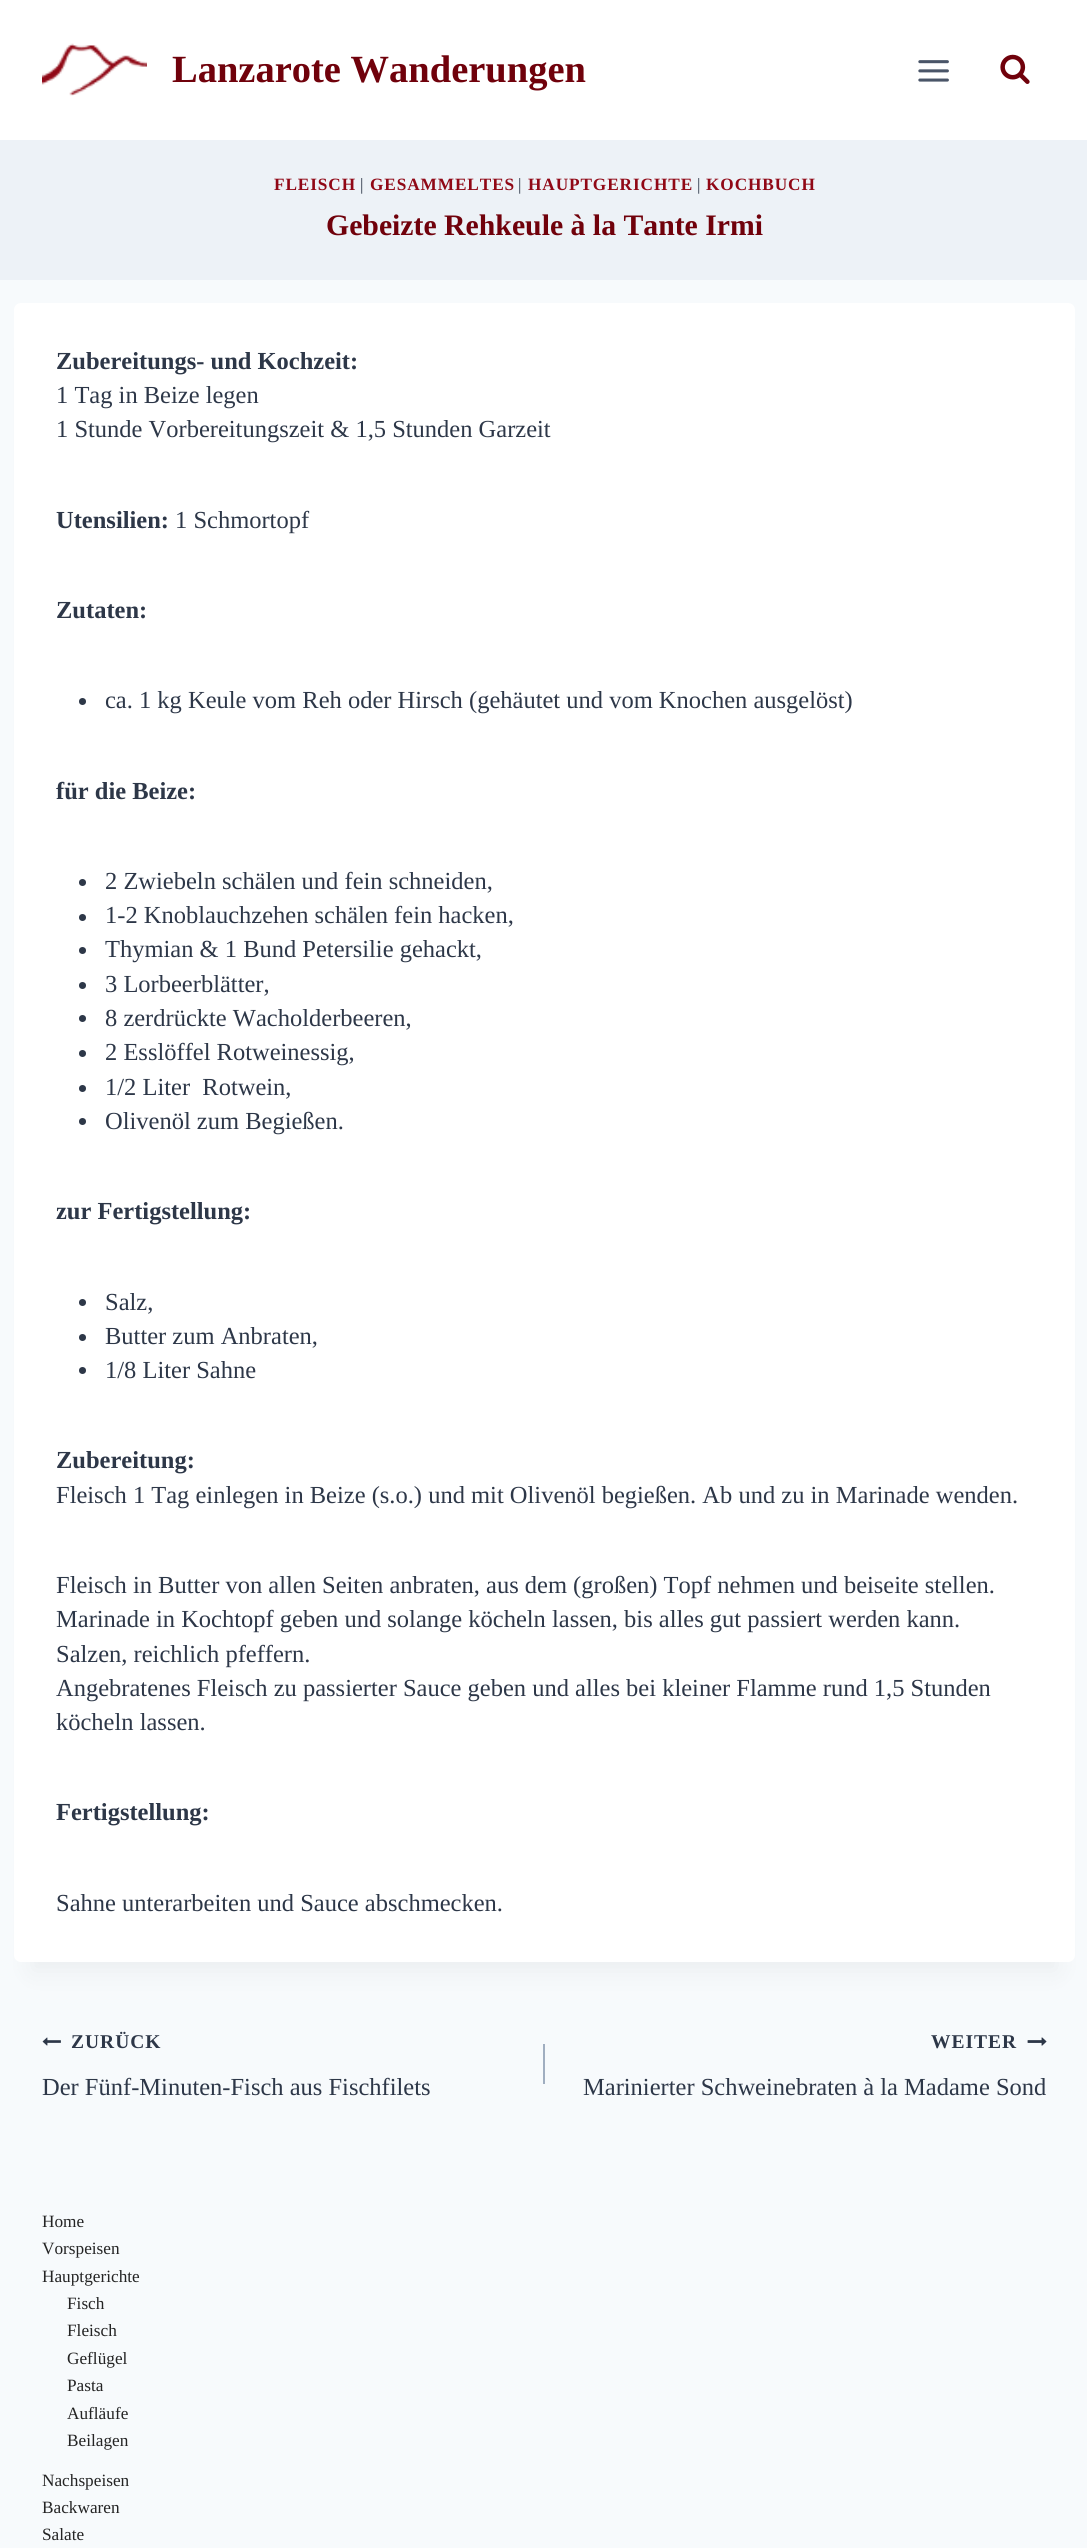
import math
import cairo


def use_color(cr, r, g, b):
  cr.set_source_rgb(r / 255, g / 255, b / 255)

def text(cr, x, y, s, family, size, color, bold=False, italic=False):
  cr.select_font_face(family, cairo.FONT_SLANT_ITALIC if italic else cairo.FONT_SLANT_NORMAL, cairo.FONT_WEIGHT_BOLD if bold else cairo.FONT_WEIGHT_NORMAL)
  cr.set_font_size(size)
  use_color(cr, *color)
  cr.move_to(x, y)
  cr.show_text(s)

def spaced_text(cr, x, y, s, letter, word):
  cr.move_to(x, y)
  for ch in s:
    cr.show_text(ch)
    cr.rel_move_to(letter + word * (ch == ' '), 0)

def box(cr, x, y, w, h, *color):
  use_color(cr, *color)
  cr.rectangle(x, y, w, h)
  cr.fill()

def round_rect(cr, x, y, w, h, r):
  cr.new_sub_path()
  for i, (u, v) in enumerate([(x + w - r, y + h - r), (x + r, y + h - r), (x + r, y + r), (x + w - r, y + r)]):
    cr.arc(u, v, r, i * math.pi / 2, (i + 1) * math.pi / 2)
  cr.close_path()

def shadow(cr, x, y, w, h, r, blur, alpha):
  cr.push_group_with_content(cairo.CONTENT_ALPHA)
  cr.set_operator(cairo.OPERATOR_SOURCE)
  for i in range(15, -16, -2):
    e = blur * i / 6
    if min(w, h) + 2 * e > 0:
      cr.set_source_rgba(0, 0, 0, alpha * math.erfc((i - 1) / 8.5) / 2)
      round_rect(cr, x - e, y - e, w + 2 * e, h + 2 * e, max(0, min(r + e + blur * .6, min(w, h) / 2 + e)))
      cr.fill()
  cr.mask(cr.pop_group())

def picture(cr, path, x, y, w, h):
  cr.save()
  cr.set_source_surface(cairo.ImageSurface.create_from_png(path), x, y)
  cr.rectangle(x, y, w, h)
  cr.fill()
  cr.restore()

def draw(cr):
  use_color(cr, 247, 250, 252)
  cr.paint()
  box(cr, 0, 0, 1087, 140, 255, 255, 255)
  picture(cr, "img_01.png", 42, 43, 105, 53)
  picture(cr, "img_02.png", 918, 60, 31, 22)
  picture(cr, "img_03.png", 1000, 54, 30, 30)
  box(cr, 0, 140, 1087, 140, 237, 242, 247)
  use_color(cr, 0, 0, 0)
  shadow(cr, 32, 347, 1025, 1624, 0, 13, 0.05)
  use_color(cr, 255, 255, 255)
  round_rect(cr, 14, 303, 1061, 1659, 7)
  cr.fill()
  use_color(cr, 45, 55, 72)
  cr.arc(82.5, 701.5, 3.5, 0, 2 * math.pi)
  cr.fill()
  cr.arc(82.5, 882.5, 3.5, 0, 2 * math.pi)
  cr.fill()
  cr.arc(82.5, 917.5, 3.5, 0, 2 * math.pi)
  cr.fill()
  cr.arc(82.5, 950.5, 3.5, 0, 2 * math.pi)
  cr.fill()
  cr.arc(82.5, 985.5, 3.5, 0, 2 * math.pi)
  cr.fill()
  cr.arc(82.5, 1018.5, 3.5, 0, 2 * math.pi)
  cr.fill()
  cr.arc(82.5, 1053.5, 3.5, 0, 2 * math.pi)
  cr.fill()
  cr.arc(82.5, 1088.5, 3.5, 0, 2 * math.pi)
  cr.fill()
  cr.arc(82.5, 1121.5, 3.5, 0, 2 * math.pi)
  cr.fill()
  cr.arc(82.5, 1302.5, 3.5, 0, 2 * math.pi)
  cr.fill()
  cr.arc(82.5, 1337.5, 3.5, 0, 2 * math.pi)
  cr.fill()
  cr.arc(82.5, 1370.5, 3.5, 0, 2 * math.pi)
  cr.fill()
  picture(cr, "img_04.png", 42, 2037, 19, 9)
  box(cr, 543, 2044, 2, 40, 160, 174, 192)
  picture(cr, "img_05.png", 1027, 2037, 20, 9)
  text(cr, 172, 82, "Lanzarote Wanderungen", "Liberation Serif", 38.5, (112, 1, 11), bold=True)
  cr.set_font_size(17.25)
  use_color(cr, 144, 8, 22)
  spaced_text(cr, 274, 190, "FLEISCH", 0.9, 0)
  cr.select_font_face("Liberation Serif")
  use_color(cr, 45, 55, 72)
  spaced_text(cr, 360, 190, "|", 0.9, 0)
  cr.select_font_face("Liberation Serif", cairo.FONT_SLANT_NORMAL, cairo.FONT_WEIGHT_BOLD)
  use_color(cr, 144, 8, 22)
  spaced_text(cr, 370, 190, "GESAMMELTES", 0.9, 0)
  cr.select_font_face("Liberation Serif")
  use_color(cr, 45, 55, 72)
  spaced_text(cr, 518, 190, "|", 0.9, 0)
  cr.select_font_face("Liberation Serif", cairo.FONT_SLANT_NORMAL, cairo.FONT_WEIGHT_BOLD)
  use_color(cr, 144, 8, 22)
  spaced_text(cr, 528, 190, "HAUPTGERICHTE", 0.9, 0)
  cr.select_font_face("Liberation Serif")
  use_color(cr, 45, 55, 72)
  spaced_text(cr, 697, 190, "|", 0.9, 0)
  cr.select_font_face("Liberation Serif", cairo.FONT_SLANT_NORMAL, cairo.FONT_WEIGHT_BOLD)
  use_color(cr, 144, 8, 22)
  spaced_text(cr, 706, 190, "KOCHBUCH", 0.9, 0)
  text(cr, 326, 235, "Gebeizte Rehkeule à la Tante Irmi", "Liberation Serif", 29.75, (112, 1, 11), bold=True)
  text(cr, 56, 369, "Zubereitungs- und Kochzeit:", "Liberation Serif", 24.5, (45, 55, 72), bold=True)
  text(cr, 56, 403, "1 Tag in Beize legen", "Liberation Serif", 24.5, (45, 55, 72))
  text(cr, 56, 437, "1 Stunde Vorbereitungszeit & 1,5 Stunden Garzeit", "Liberation Serif", 24.5, (45, 55, 72))
  text(cr, 56, 528, "Utensilien:", "Liberation Serif", 24.5, (45, 55, 72), bold=True)
  text(cr, 175, 528, "1 Schmortopf", "Liberation Serif", 24.5, (45, 55, 72))
  text(cr, 56, 618, "Zutaten:", "Liberation Serif", 24.5, (45, 55, 72), bold=True)
  text(cr, 105, 708, "ca. 1 kg Keule vom Reh oder Hirsch (gehäutet und vom Knochen ausgelöst)", "Liberation Serif", 24.5, (45, 55, 72))
  text(cr, 56, 799, "für die Beize:", "Liberation Serif", 24.5, (45, 55, 72), bold=True)
  text(cr, 105, 889, "2 Zwiebeln schälen und fein schneiden,", "Liberation Serif", 24.5, (45, 55, 72))
  text(cr, 105, 923, "1-2 Knoblauchzehen schälen fein hacken,", "Liberation Serif", 24.5, (45, 55, 72))
  text(cr, 105, 957, "Thymian & 1 Bund Petersilie gehackt,", "Liberation Serif", 24.5, (45, 55, 72))
  text(cr, 105, 992, "3 Lorbeerblätter,", "Liberation Serif", 24.5, (45, 55, 72))
  text(cr, 105, 1026, "8 zerdrückte Wacholderbeeren,", "Liberation Serif", 24.5, (45, 55, 72))
  text(cr, 105, 1060, "2 Esslöffel Rotweinessig,", "Liberation Serif", 24.5, (45, 55, 72))
  text(cr, 105, 1095, "1/2 Liter  Rotwein,", "Liberation Serif", 24.5, (45, 55, 72))
  text(cr, 105, 1129, "Olivenöl zum Begießen.", "Liberation Serif", 24.5, (45, 55, 72))
  text(cr, 56, 1219, "zur Fertigstellung:", "Liberation Serif", 24.5, (45, 55, 72), bold=True)
  text(cr, 105, 1310, "Salz,", "Liberation Serif", 24.5, (45, 55, 72))
  text(cr, 105, 1344, "Butter zum Anbraten,", "Liberation Serif", 24.5, (45, 55, 72))
  text(cr, 105, 1378, "1/8 Liter Sahne", "Liberation Serif", 24.5, (45, 55, 72))
  text(cr, 56, 1468, "Zubereitung:", "Liberation Serif", 24.5, (45, 55, 72), bold=True)
  text(cr, 56, 1503, "Fleisch 1 Tag einlegen in Beize (s.o.) und mit Olivenöl begießen. Ab und zu in Marinade wenden.", "Liberation Serif", 24.5, (45, 55, 72))
  text(cr, 56, 1593, "Fleisch in Butter von allen Seiten anbraten, aus dem (großen) Topf nehmen und beiseite stellen.", "Liberation Serif", 24.5, (45, 55, 72))
  text(cr, 56, 1627, "Marinade in Kochtopf geben und solange köcheln lassen, bis alles gut passiert werden kann.", "Liberation Serif", 24.5, (45, 55, 72))
  text(cr, 56, 1662, "Salzen, reichlich pfeffern.", "Liberation Serif", 24.5, (45, 55, 72))
  text(cr, 56, 1696, "Angebratenes Fleisch zu passierter Sauce geben und alles bei kleiner Flamme rund 1,5 Stunden", "Liberation Serif", 24.5, (45, 55, 72))
  text(cr, 56, 1730, "köcheln lassen.", "Liberation Serif", 24.5, (45, 55, 72))
  text(cr, 56, 1820, "Fertigstellung:", "Liberation Serif", 24.5, (45, 55, 72), bold=True)
  text(cr, 56, 1911, "Sahne unterarbeiten und Sauce abschmecken.", "Liberation Serif", 24.5, (45, 55, 72))
  cr.select_font_face("Liberation Serif", cairo.FONT_SLANT_NORMAL, cairo.FONT_WEIGHT_BOLD)
  cr.set_font_size(19.5)
  spaced_text(cr, 71, 2048, "ZURÜCK", 1, 0)
  text(cr, 42, 2095, "Der Fünf-Minuten-Fisch aus Fischfilets", "Liberation Serif", 24.5, (45, 55, 72))
  cr.select_font_face("Liberation Serif", cairo.FONT_SLANT_NORMAL, cairo.FONT_WEIGHT_BOLD)
  cr.set_font_size(19.5)
  spaced_text(cr, 931, 2048, "WEITER", 1, 0)
  text(cr, 583, 2095, "Marinierter Schweinebraten à la Madame Sond", "Liberation Serif", 24.5, (45, 55, 72))
  text(cr, 42, 2227, "Home", "Liberation Serif", 17.25, (36, 36, 36))
  text(cr, 42, 2254, "Vorspeisen", "Liberation Serif", 17.25, (36, 36, 36))
  text(cr, 42, 2282, "Hauptgerichte", "Liberation Serif", 17.25, (36, 36, 36))
  text(cr, 67, 2309, "Fisch", "Liberation Serif", 17.25, (36, 36, 36))
  text(cr, 67, 2336, "Fleisch", "Liberation Serif", 17.25, (36, 36, 36))
  text(cr, 67, 2364, "Geflügel", "Liberation Serif", 17.25, (36, 36, 36))
  text(cr, 67, 2391, "Pasta", "Liberation Serif", 17.25, (36, 36, 36))
  text(cr, 67, 2419, "Aufläufe", "Liberation Serif", 17.25, (36, 36, 36))
  text(cr, 67, 2446, "Beilagen", "Liberation Serif", 17.25, (36, 36, 36))
  text(cr, 42, 2486, "Nachspeisen", "Liberation Serif", 17.25, (36, 36, 36))
  text(cr, 42, 2513, "Backwaren", "Liberation Serif", 17.25, (36, 36, 36))
  text(cr, 42, 2540, "Salate", "Liberation Serif", 17.25, (36, 36, 36))


surface = cairo.ImageSurface(cairo.FORMAT_RGB24, 1087, 2548)
cr = cairo.Context(surface)
options = cairo.FontOptions()
options.set_hint_metrics(cairo.HINT_METRICS_OFF)
options.set_hint_style(cairo.HINT_STYLE_NONE)
cr.set_font_options(options)
cr.set_miter_limit(4)
draw(cr)
surface.write_to_png("out.png")
